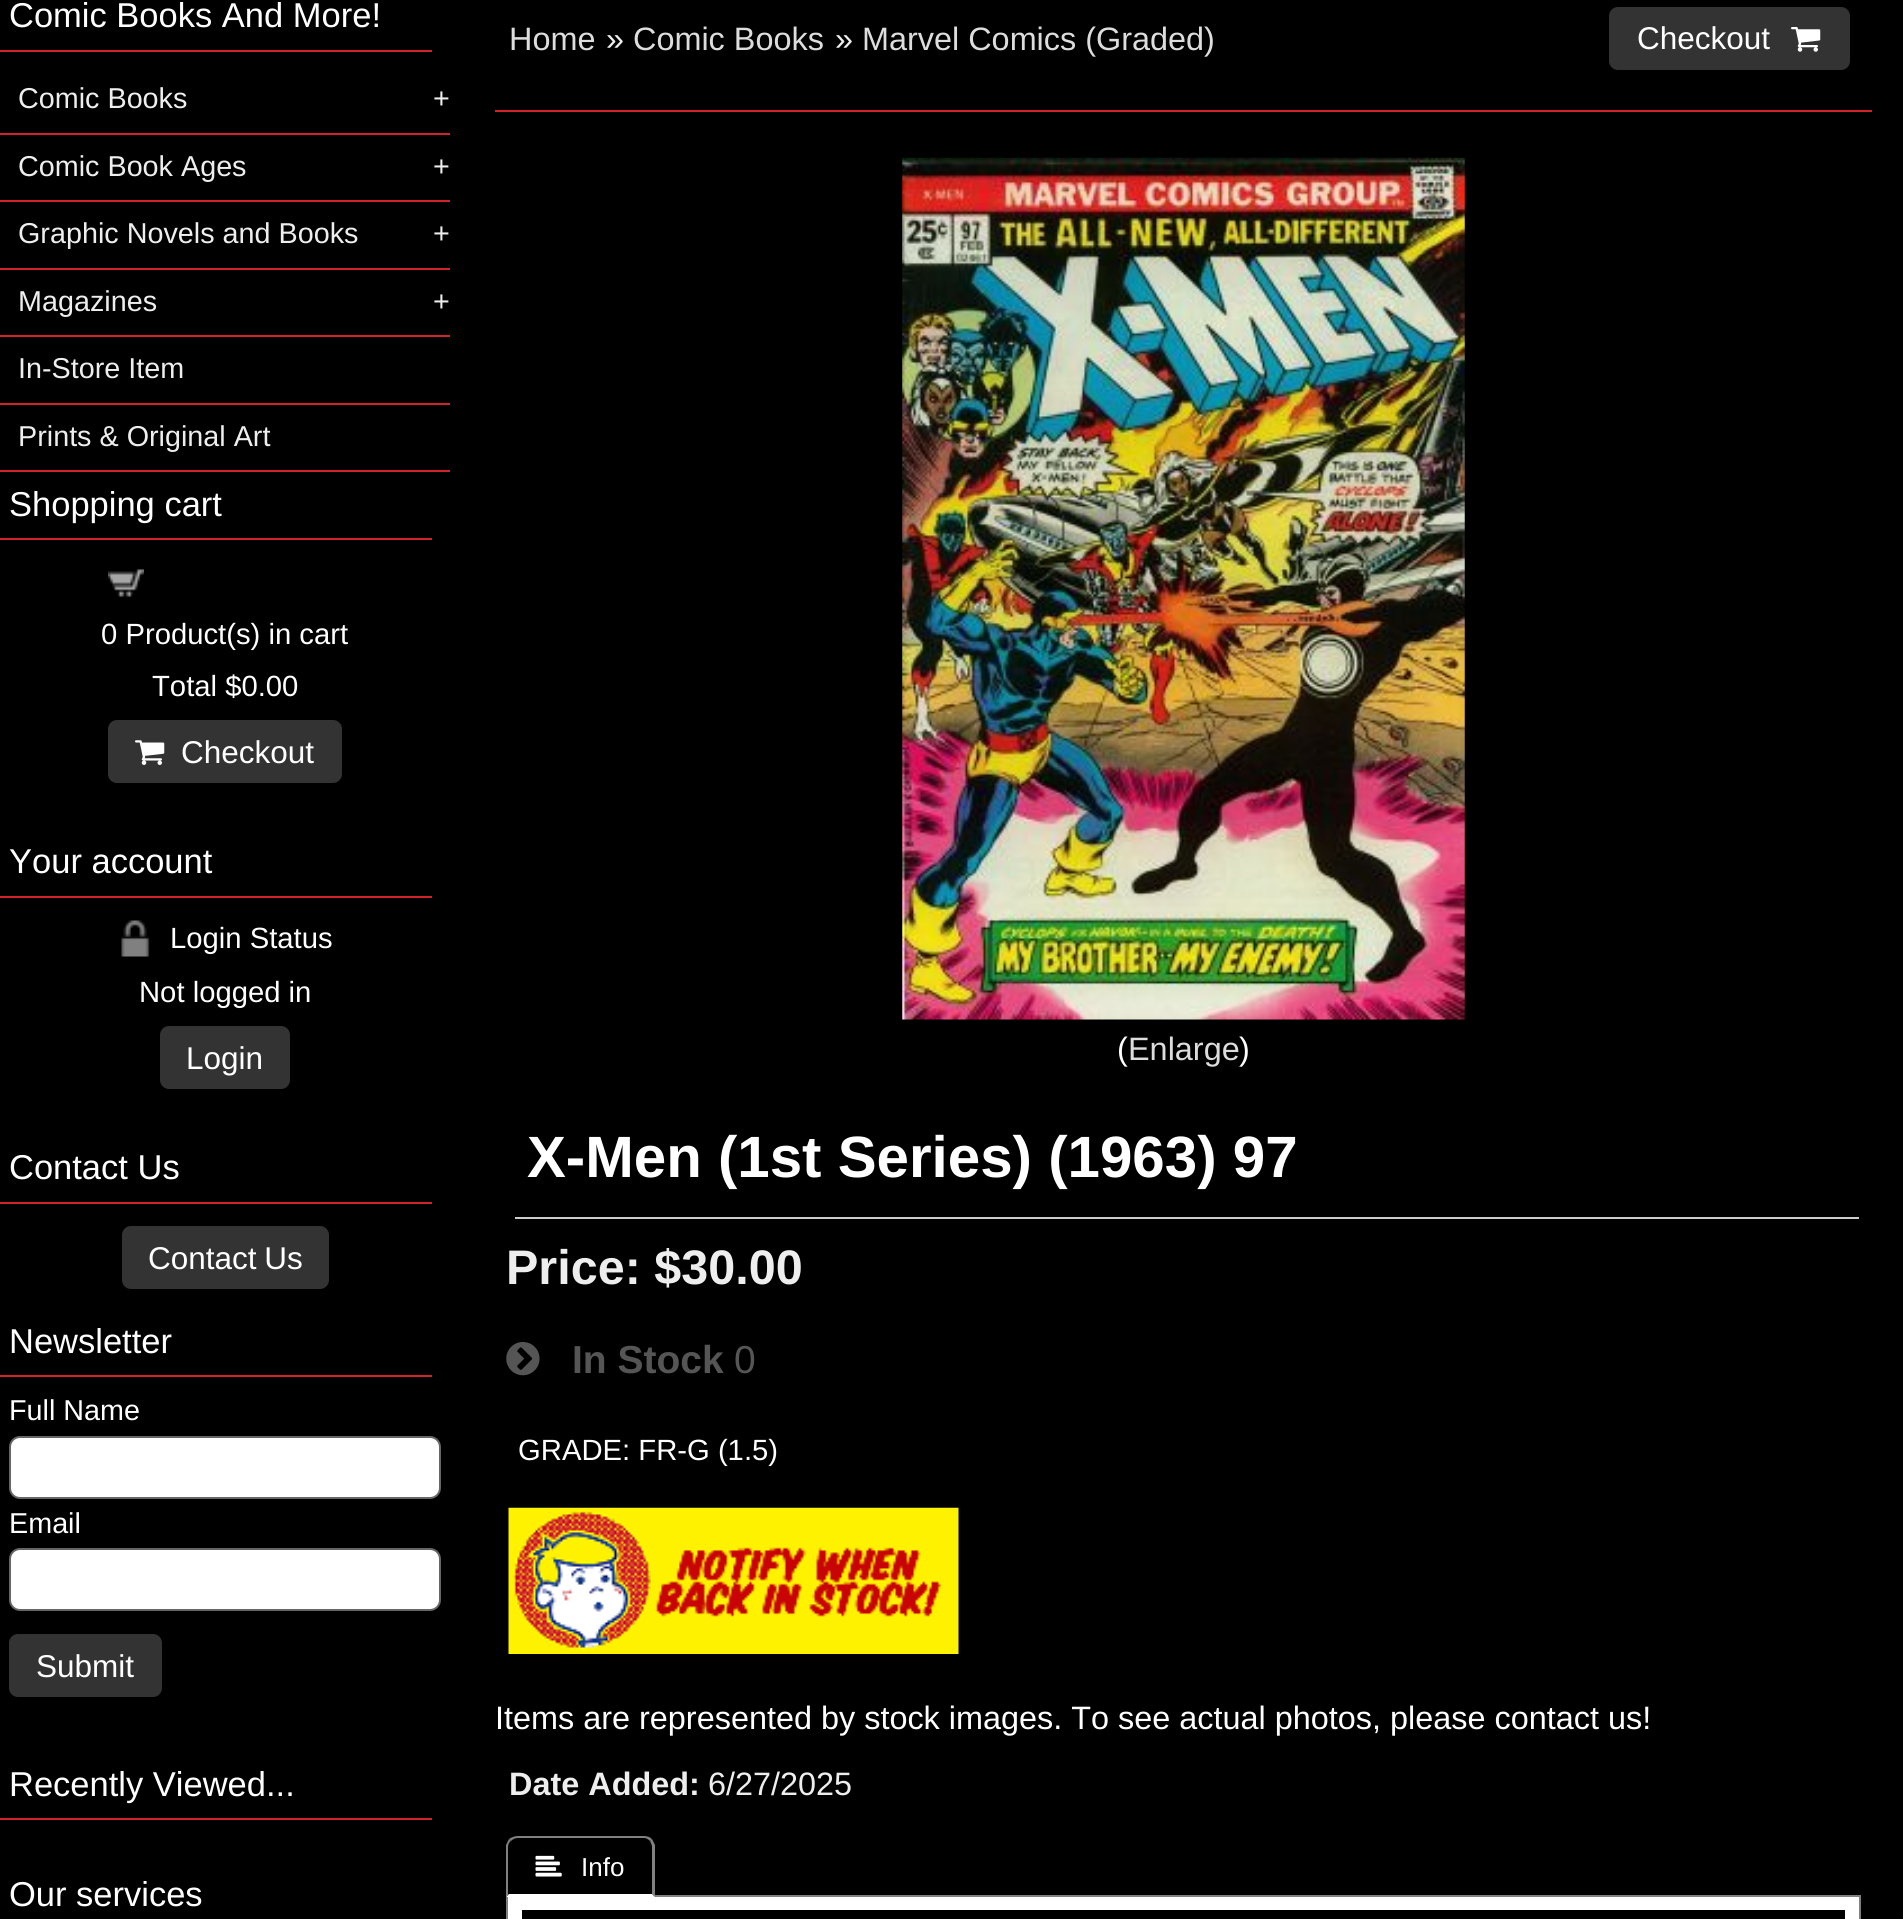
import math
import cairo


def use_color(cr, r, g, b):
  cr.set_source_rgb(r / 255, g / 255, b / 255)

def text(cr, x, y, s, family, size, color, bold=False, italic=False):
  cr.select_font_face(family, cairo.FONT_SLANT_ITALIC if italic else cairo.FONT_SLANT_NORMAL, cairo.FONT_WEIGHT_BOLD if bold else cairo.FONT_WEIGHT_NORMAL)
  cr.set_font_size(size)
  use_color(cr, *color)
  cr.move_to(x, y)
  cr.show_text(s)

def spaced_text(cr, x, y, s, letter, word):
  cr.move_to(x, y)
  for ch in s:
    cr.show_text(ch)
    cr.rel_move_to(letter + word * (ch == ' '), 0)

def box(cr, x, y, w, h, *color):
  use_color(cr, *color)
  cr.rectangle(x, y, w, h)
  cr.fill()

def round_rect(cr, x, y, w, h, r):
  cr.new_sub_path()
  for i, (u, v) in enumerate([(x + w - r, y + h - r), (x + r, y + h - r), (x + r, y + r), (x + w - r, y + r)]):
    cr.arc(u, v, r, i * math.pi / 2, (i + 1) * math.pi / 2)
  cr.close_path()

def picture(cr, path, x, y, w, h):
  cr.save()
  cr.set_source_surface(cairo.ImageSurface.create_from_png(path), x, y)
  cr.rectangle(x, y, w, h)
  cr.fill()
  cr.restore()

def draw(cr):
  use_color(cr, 0, 0, 0)
  cr.paint()
  box(cr, 0, 50, 432, 2, 210, 35, 42)
  box(cr, 0, 133, 450, 2, 210, 35, 42)
  box(cr, 0, 200, 450, 2, 210, 35, 42)
  box(cr, 0, 268, 450, 2, 210, 35, 42)
  box(cr, 0, 335, 450, 2, 210, 35, 42)
  box(cr, 0, 403, 450, 2, 210, 35, 42)
  box(cr, 0, 470, 450, 2, 210, 35, 42)
  box(cr, 0, 538, 432, 2, 210, 35, 42)
  picture(cr, "img_01.png", 108, 569, 36, 29)
  use_color(cr, 51, 51, 51)
  round_rect(cr, 108, 720, 234, 63, 9)
  cr.fill()
  picture(cr, "img_02.png", 135, 740, 30, 25)
  box(cr, 0, 896, 432, 2, 210, 35, 42)
  picture(cr, "img_03.png", 121, 920, 29, 37)
  use_color(cr, 51, 51, 51)
  round_rect(cr, 160, 1026, 130, 63, 9)
  cr.fill()
  box(cr, 0, 1202, 432, 2, 210, 35, 42)
  use_color(cr, 51, 51, 51)
  round_rect(cr, 122, 1226, 207, 63, 9)
  cr.fill()
  box(cr, 0, 1375, 432, 2, 210, 35, 42)
  use_color(cr, 255, 255, 255)
  round_rect(cr, 10, 1437, 430, 61, 10)
  cr.fill_preserve()
  use_color(cr, 102, 102, 102)
  cr.stroke()
  use_color(cr, 255, 255, 255)
  round_rect(cr, 10, 1549, 430, 61, 10)
  cr.fill_preserve()
  use_color(cr, 102, 102, 102)
  cr.stroke()
  use_color(cr, 51, 51, 51)
  round_rect(cr, 9, 1634, 153, 63, 9)
  cr.fill()
  box(cr, 0, 1818, 432, 2, 210, 35, 42)
  box(cr, 495, 110, 1377, 2, 210, 35, 42)
  use_color(cr, 51, 51, 51)
  round_rect(cr, 1609, 7, 241, 63, 9)
  cr.fill()
  picture(cr, "img_04.png", 1791, 27, 30, 25)
  picture(cr, "img_05.png", 902, 157, 563, 863)
  box(cr, 515, 1217, 1344, 2, 204, 204, 204)
  picture(cr, "img_06.png", 506, 1342, 34, 34)
  picture(cr, "img_07.png", 508, 1507, 451, 147)
  use_color(cr, 255, 255, 255)
  cr.rectangle(507, 1896, 1353, 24)
  cr.fill_preserve()
  use_color(cr, 128, 128, 128)
  cr.stroke()
  use_color(cr, 0, 0, 0)
  cr.new_path()
  cr.move_to(517, 1836)
  cr.line_to(644, 1836)
  cr.curve_to(650, 1836, 655, 1841, 655, 1847)
  cr.line_to(655, 1897)
  cr.line_to(506, 1897)
  cr.line_to(506, 1847)
  cr.curve_to(506, 1841, 511, 1836, 517, 1836)
  cr.close_path()
  cr.fill()
  use_color(cr, 128, 128, 128)
  cr.new_path()
  cr.move_to(518, 1836)
  cr.curve_to(515, 1836, 512, 1837, 509, 1839)
  cr.line_to(511, 1841)
  cr.curve_to(513, 1839, 515, 1838, 518, 1838)
  cr.line_to(644, 1838)
  cr.curve_to(646, 1838, 648, 1839, 650, 1841)
  cr.line_to(652, 1839)
  cr.curve_to(650, 1837, 647, 1836, 644, 1836)
  cr.close_path()
  cr.fill()
  cr.new_path()
  cr.move_to(652, 1839)
  cr.curve_to(653, 1841, 654, 1843, 655, 1845)
  cr.line_to(655, 1897)
  cr.line_to(652, 1894)
  cr.line_to(652, 1847)
  cr.curve_to(652, 1845, 651, 1843, 650, 1841)
  cr.close_path()
  cr.fill()
  use_color(cr, 255, 255, 255)
  cr.new_path()
  cr.move_to(655, 1897)
  cr.line_to(652, 1894)
  cr.line_to(509, 1894)
  cr.line_to(506, 1897)
  cr.close_path()
  cr.fill()
  use_color(cr, 128, 128, 128)
  cr.new_path()
  cr.move_to(506, 1897)
  cr.line_to(506, 1845)
  cr.curve_to(507, 1843, 508, 1841, 509, 1839)
  cr.line_to(511, 1841)
  cr.curve_to(509, 1842, 508, 1845, 508, 1847)
  cr.line_to(508, 1894)
  cr.line_to(509, 1894)
  cr.close_path()
  cr.fill()
  picture(cr, "img_08.png", 535, 1855, 27, 22)
  box(cr, 522, 1910, 1323, 9, 0, 0, 0)
  text(cr, 9, 27, "Comic Books And More!", "Liberation Sans", 34.5, (255, 255, 255))
  text(cr, 18, 108, "Comic Books", "Liberation Sans", 28.75, (238, 238, 238))
  text(cr, 433, 108, "+", "Liberation Sans", 28.75, (238, 238, 238))
  text(cr, 18, 176, "Comic Book Ages", "Liberation Sans", 28.75, (238, 238, 238))
  text(cr, 433, 176, "+", "Liberation Sans", 28.75, (238, 238, 238))
  text(cr, 18, 243, "Graphic Novels and Books", "Liberation Sans", 28.75, (238, 238, 238))
  text(cr, 433, 243, "+", "Liberation Sans", 28.75, (238, 238, 238))
  text(cr, 18, 311, "Magazines", "Liberation Sans", 28.75, (238, 238, 238))
  text(cr, 433, 311, "+", "Liberation Sans", 28.75, (238, 238, 238))
  text(cr, 18, 378, "In-Store Item", "Liberation Sans", 28.75, (238, 238, 238))
  text(cr, 18, 446, "Prints & Original Art", "Liberation Sans", 28.75, (238, 238, 238))
  text(cr, 9, 516, "Shopping cart", "Liberation Sans", 34.5, (255, 255, 255))
  text(cr, 101, 644, "0 Product(s) in cart", "Liberation Sans", 29.25, (255, 255, 255))
  text(cr, 152, 696, "Total $0.00", "Liberation Sans", 29.25, (255, 255, 255))
  text(cr, 181, 763, "Checkout", "Liberation Sans", 31.5, (255, 255, 255))
  text(cr, 9, 873, "Your account", "Liberation Sans", 34.5, (255, 255, 255))
  text(cr, 170, 948, "Login Status", "Liberation Sans", 29.25, (255, 255, 255))
  text(cr, 139, 1002, "Not logged in", "Liberation Sans", 29.25, (255, 255, 255))
  text(cr, 186, 1069, "Login", "Liberation Sans", 31.5, (255, 255, 255))
  text(cr, 9, 1179, "Contact Us", "Liberation Sans", 34.5, (255, 255, 255))
  cr.set_font_size(31.5)
  spaced_text(cr, 148, 1269, "Contact Us", 0, -1)
  text(cr, 9, 1353, "Newsletter", "Liberation Sans", 34.5, (255, 255, 255))
  text(cr, 9, 1420, "Full Name", "Liberation Sans", 28.75, (255, 255, 255))
  text(cr, 9, 1533, "Email", "Liberation Sans", 28.75, (255, 255, 255))
  text(cr, 36, 1677, "Submit", "Liberation Sans", 31.5, (255, 255, 255))
  text(cr, 9, 1796, "Recently Viewed...", "Liberation Sans", 34.5, (255, 255, 255))
  text(cr, 9, 1906, "Our services", "Liberation Sans", 34.5, (255, 255, 255))
  text(cr, 509, 50, "Home", "Liberation Sans", 32.4, (221, 221, 221))
  text(cr, 606, 50, "»", "Liberation Sans", 32.4, (238, 238, 238))
  text(cr, 633, 50, "Comic Books", "Liberation Sans", 32.4, (221, 221, 221))
  text(cr, 835, 50, "»", "Liberation Sans", 32.4, (238, 238, 238))
  text(cr, 862, 50, "Marvel Comics (Graded)", "Liberation Sans", 32.4, (221, 221, 221))
  text(cr, 1637, 49, "Checkout", "Liberation Sans", 31.5, (255, 255, 255))
  text(cr, 1117, 1060, "(", "Liberation Sans", 32.4, (255, 255, 255))
  text(cr, 1128, 1060, "Enlarge", "Liberation Sans", 32.4, (221, 221, 221))
  text(cr, 1239, 1060, ")", "Liberation Sans", 32.4, (255, 255, 255))
  text(cr, 527, 1177, "X-Men (1st Series) (1963) 97", "Liberation Sans", 58.25, (255, 255, 255), bold=True)
  text(cr, 506, 1284, "Price: $30.00", "Liberation Sans", 48.5, (238, 238, 238), bold=True)
  text(cr, 572, 1373, "In Stock", "Liberation Sans", 39, (85, 85, 85), bold=True)
  text(cr, 734, 1373, "0", "Liberation Sans", 39, (85, 85, 85))
  text(cr, 518, 1460, "GRADE: FR-G (1.5)", "Liberation Sans", 29.25, (255, 255, 255))
  text(cr, 495, 1729, "Items are represented by stock images. To see actual photos, please contact us!", "Liberation Sans", 32.4, (255, 255, 255))
  text(cr, 509, 1795, "Date Added:", "Liberation Sans", 32.4, (238, 238, 238), bold=True)
  text(cr, 708, 1795, "6/27/2025", "Liberation Sans", 32.4, (238, 238, 238))
  text(cr, 581, 1876, "Info", "Liberation Sans", 26, (255, 255, 255))


surface = cairo.ImageSurface(cairo.FORMAT_RGB24, 1903, 1919)
cr = cairo.Context(surface)
options = cairo.FontOptions()
options.set_hint_metrics(cairo.HINT_METRICS_OFF)
options.set_hint_style(cairo.HINT_STYLE_NONE)
cr.set_font_options(options)
cr.set_miter_limit(4)
draw(cr)
surface.write_to_png("out.png")
